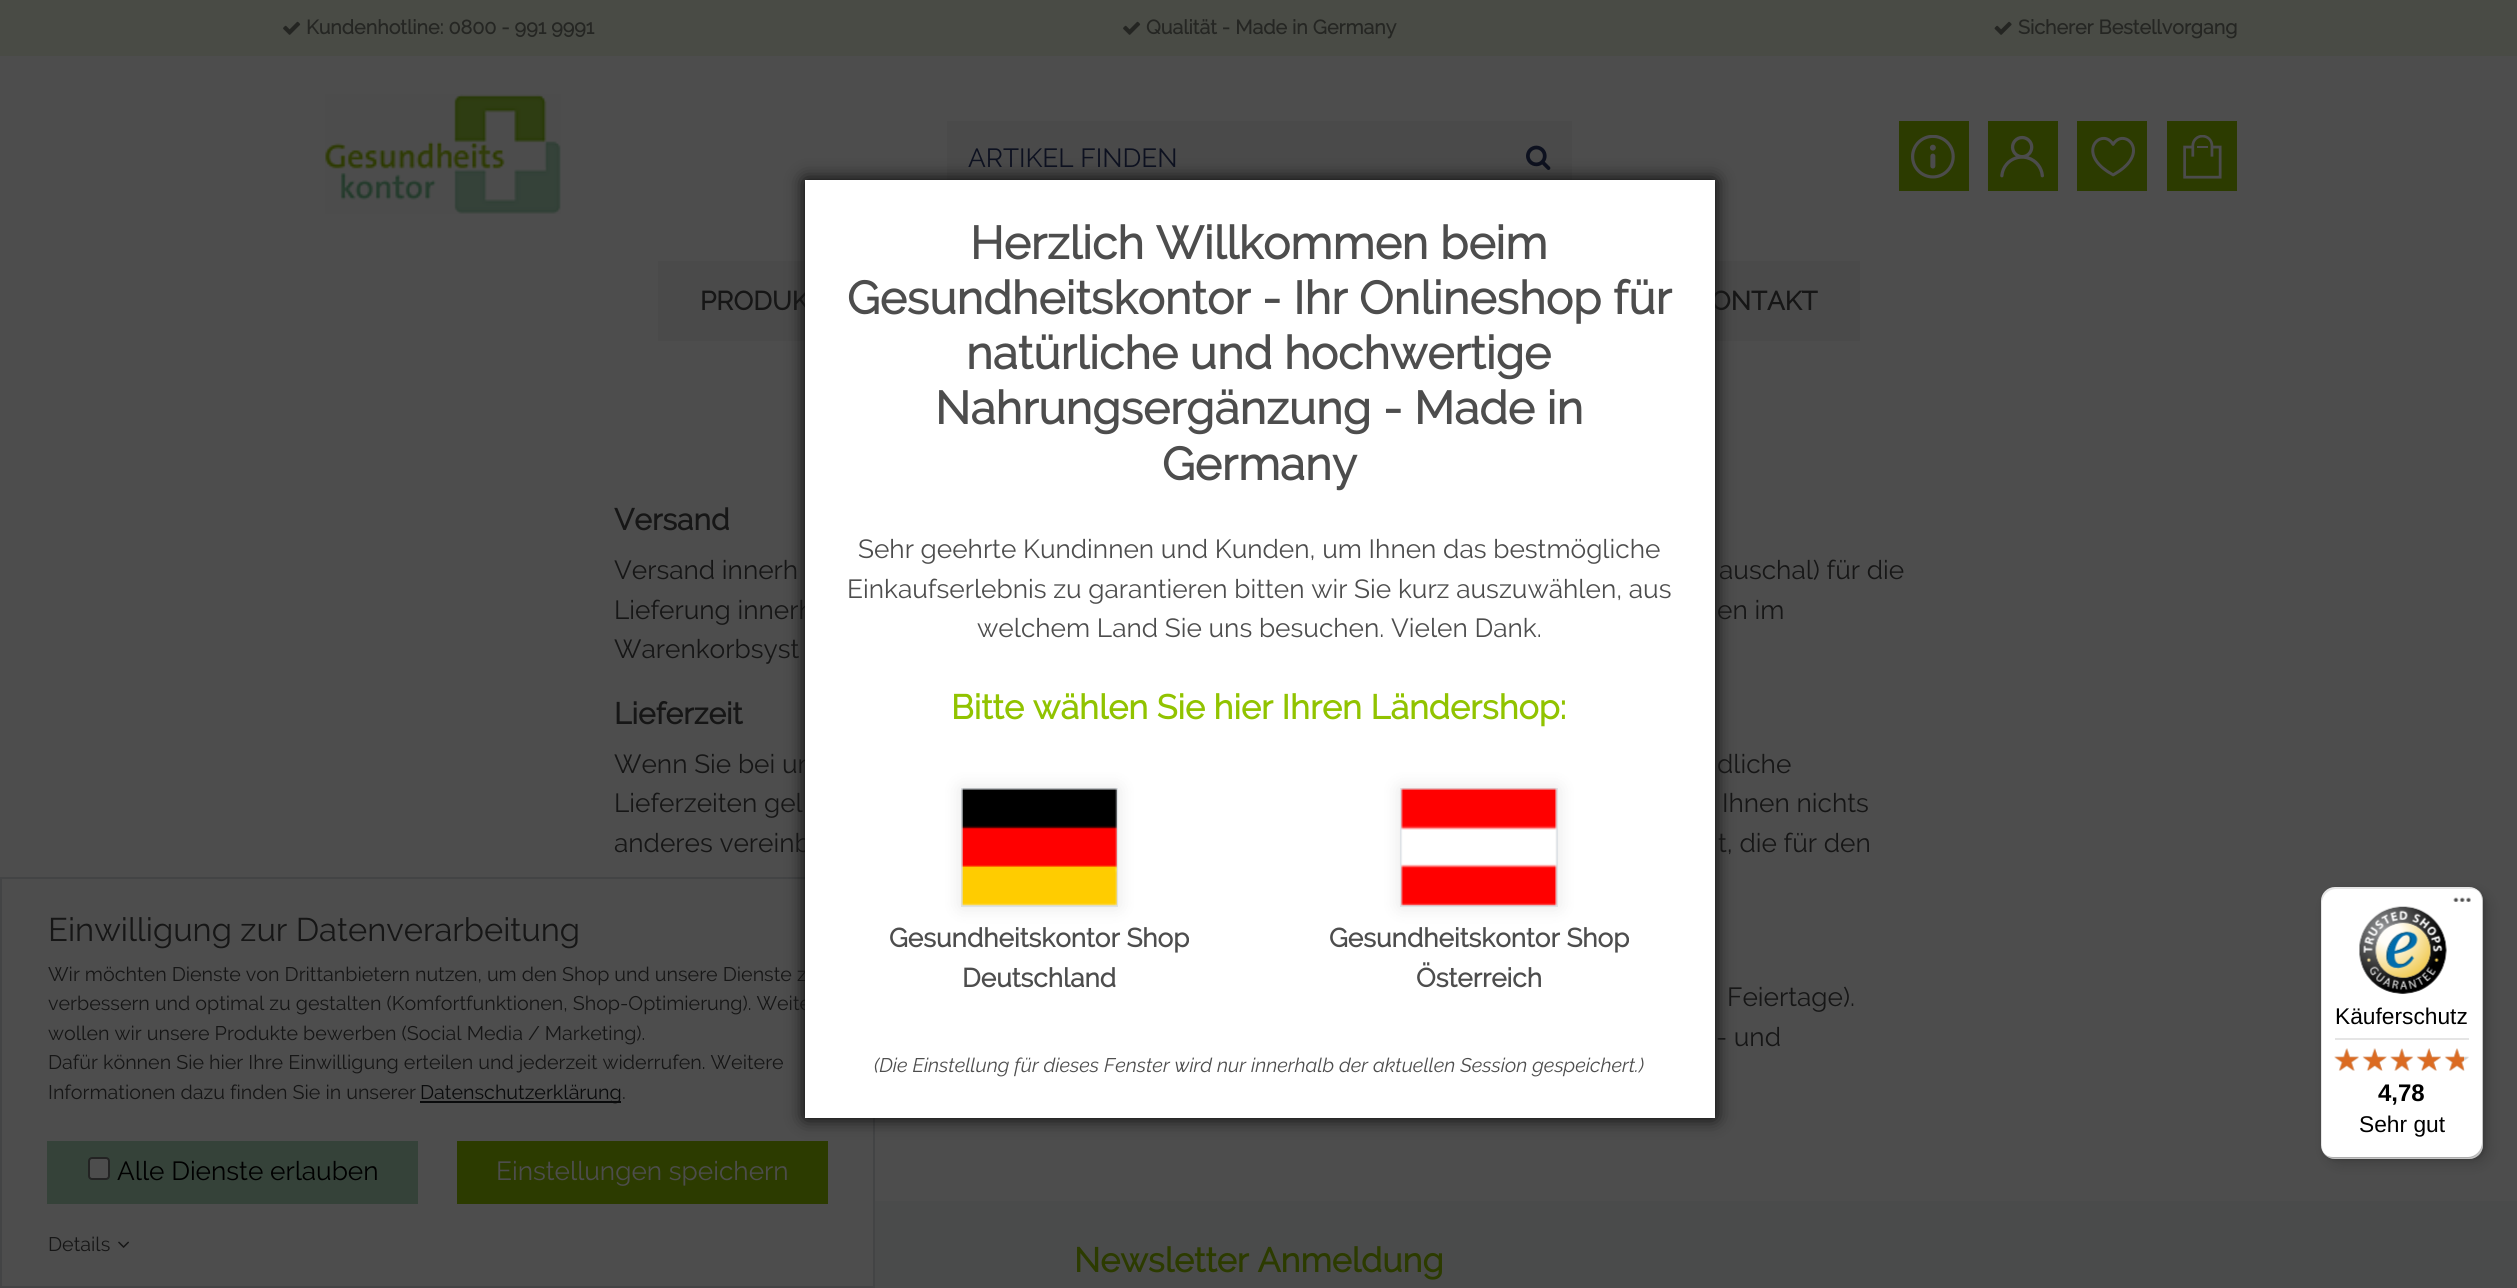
import math
import cairo


def use_color(cr, r, g, b):
  cr.set_source_rgb(r / 255, g / 255, b / 255)

def text(cr, x, y, s, family, size, color, bold=False, italic=False):
  cr.select_font_face(family, cairo.FONT_SLANT_ITALIC if italic else cairo.FONT_SLANT_NORMAL, cairo.FONT_WEIGHT_BOLD if bold else cairo.FONT_WEIGHT_NORMAL)
  cr.set_font_size(size)
  use_color(cr, *color)
  cr.move_to(x, y)
  cr.show_text(s)

def box(cr, x, y, w, h, *color):
  use_color(cr, *color)
  cr.rectangle(x, y, w, h)
  cr.fill()

def round_rect(cr, x, y, w, h, r):
  cr.new_sub_path()
  for i, (u, v) in enumerate([(x + w - r, y + h - r), (x + r, y + h - r), (x + r, y + r), (x + w - r, y + r)]):
    cr.arc(u, v, r, i * math.pi / 2, (i + 1) * math.pi / 2)
  cr.close_path()

def shadow(cr, x, y, w, h, r, blur, alpha):
  cr.push_group_with_content(cairo.CONTENT_ALPHA)
  cr.set_operator(cairo.OPERATOR_SOURCE)
  for i in range(15, -16, -2):
    e = blur * i / 6
    if min(w, h) + 2 * e > 0:
      cr.set_source_rgba(0, 0, 0, alpha * math.erfc((i - 1) / 8.5) / 2)
      round_rect(cr, x - e, y - e, w + 2 * e, h + 2 * e, max(0, min(r + e + blur * .6, min(w, h) / 2 + e)))
      cr.fill()
  cr.mask(cr.pop_group())

def picture(cr, path, x, y, w, h):
  cr.save()
  cr.set_source_surface(cairo.ImageSurface.create_from_png(path), x, y)
  cr.rectangle(x, y, w, h)
  cr.fill()
  cr.restore()

def draw(cr):
  use_color(cr, 77, 77, 77)
  cr.paint()
  box(cr, 0, 0, 2517, 56, 73, 75, 69)
  picture(cr, "img_01.png", 283, 21, 18, 14)
  picture(cr, "img_01.png", 1123, 21, 18, 14)
  picture(cr, "img_02.png", 1994, 21, 18, 14)
  picture(cr, "img_03.png", 325, 94, 236, 120)
  box(cr, 947, 121, 625, 59, 74, 74, 74)
  picture(cr, "img_04.png", 1526, 145, 25, 25)
  box(cr, 1899, 121, 70, 70, 44, 59, 0)
  picture(cr, "img_05.png", 1911, 135, 44, 44)
  box(cr, 1988, 121, 70, 70, 44, 59, 0)
  picture(cr, "img_06.png", 2000, 135, 44, 43)
  box(cr, 2077, 121, 70, 70, 44, 59, 0)
  picture(cr, "img_07.png", 2091, 136, 44, 41)
  box(cr, 2167, 121, 70, 70, 44, 59, 0)
  picture(cr, "img_08.png", 2183, 135, 39, 44)
  box(cr, 658, 261, 147, 80, 74, 74, 74)
  box(cr, 1715, 261, 145, 80, 74, 74, 74)
  cr.rectangle(1, 878, 873, 409)
  use_color(cr, 67, 68, 69)
  cr.stroke()
  box(cr, 420, 1101, 201, 2, 10, 11, 12)
  box(cr, 47, 1141, 371, 63, 53, 66, 57)
  use_color(cr, 77, 77, 77)
  round_rect(cr, 89, 1158, 20, 21, 3)
  cr.fill_preserve()
  use_color(cr, 35, 35, 35)
  cr.stroke()
  box(cr, 457, 1141, 371, 63, 44, 59, 0)
  picture(cr, "img_09.png", 118, 1241, 11, 7)
  use_color(cr, 0, 0, 0)
  shadow(cr, 805, 180, 910, 938, 0, 9, 0.95)
  shadow(cr, 2326, 893, 163, 271, 14, 7, 0.15)
  shadow(cr, 2322, 889, 163, 271, 14, 2, 0.15)
  use_color(cr, 255, 255, 255)
  round_rect(cr, 2321, 887, 162, 272, 14)
  cr.fill()
  cr.set_source_rgba(0, 0, 0, 0.1)
  cr.new_path()
  cr.move_to(2336, 889)
  cr.line_to(2471, 889)
  cr.curve_to(2474, 889, 2477, 890, 2479, 892)
  cr.curve_to(2477, 889, 2473, 887, 2469, 887)
  cr.line_to(2335, 887)
  cr.curve_to(2327, 887, 2321, 893, 2321, 901)
  cr.line_to(2321, 1145)
  cr.curve_to(2321, 1150, 2323, 1154, 2327, 1156)
  cr.curve_to(2324, 1154, 2322, 1150, 2322, 1146)
  cr.line_to(2322, 903)
  cr.curve_to(2322, 895, 2329, 889, 2336, 889)
  cr.close_path()
  cr.fill()
  cr.set_source_rgba(0, 0, 0, 0.2)
  cr.new_path()
  cr.move_to(2324, 1153)
  cr.curve_to(2326, 1157, 2330, 1159, 2335, 1159)
  cr.line_to(2469, 1159)
  cr.curve_to(2477, 1159, 2483, 1153, 2483, 1145)
  cr.line_to(2483, 901)
  cr.curve_to(2483, 896, 2481, 892, 2477, 890)
  cr.curve_to(2480, 892, 2482, 896, 2482, 900)
  cr.line_to(2482, 1143)
  cr.curve_to(2482, 1150, 2475, 1157, 2468, 1157)
  cr.line_to(2333, 1157)
  cr.curve_to(2329, 1157, 2326, 1156, 2324, 1153)
  cr.close_path()
  cr.fill()
  cr.set_source_rgba(0.196, 0.196, 0.196, 0.2)
  cr.new_path()
  cr.move_to(2324, 1153)
  cr.curve_to(2326, 1157, 2330, 1159, 2335, 1159)
  cr.line_to(2469, 1159)
  cr.curve_to(2477, 1159, 2483, 1153, 2483, 1145)
  cr.line_to(2483, 901)
  cr.curve_to(2483, 897, 2482, 894, 2479, 892)
  cr.curve_to(2481, 894, 2482, 897, 2482, 900)
  cr.line_to(2482, 1143)
  cr.curve_to(2482, 1151, 2476, 1157, 2468, 1157)
  cr.line_to(2333, 1157)
  cr.curve_to(2330, 1157, 2326, 1156, 2324, 1153)
  cr.close_path()
  cr.fill()
  cr.set_source_rgba(1, 1, 1, 0.3)
  cr.new_path()
  cr.move_to(2324, 1153)
  cr.curve_to(2326, 1157, 2330, 1159, 2335, 1159)
  cr.line_to(2469, 1159)
  cr.curve_to(2477, 1159, 2483, 1153, 2483, 1145)
  cr.line_to(2483, 901)
  cr.curve_to(2483, 896, 2481, 892, 2478, 890)
  cr.curve_to(2480, 893, 2482, 896, 2482, 900)
  cr.line_to(2482, 1144)
  cr.curve_to(2482, 1151, 2476, 1158, 2468, 1158)
  cr.line_to(2334, 1158)
  cr.curve_to(2330, 1158, 2326, 1156, 2324, 1153)
  cr.close_path()
  cr.fill()
  picture(cr, "img_12.png", 2453, 897, 18, 5)
  picture(cr, "img_13.png", 2359, 906, 88, 88)
  box(cr, 2335, 1038, 134, 2, 229, 229, 229)
  picture(cr, "img_14.png", 2334, 1048, 25, 23)
  picture(cr, "img_15.png", 2363, 1048, 24, 23)
  picture(cr, "img_16.png", 2390, 1049, 23, 22)
  picture(cr, "img_17.png", 2417, 1048, 24, 23)
  picture(cr, "img_18.png", 2445, 1048, 24, 23)
  picture(cr, "img_19.png", 2334, 1048, 25, 23)
  picture(cr, "img_20.png", 2362, 1048, 25, 23)
  picture(cr, "img_21.png", 2390, 1048, 24, 23)
  picture(cr, "img_22.png", 2416, 1048, 25, 23)
  picture(cr, "img_23.png", 2444, 1048, 20, 23)
  box(cr, 875, 1201, 1642, 87, 74, 75, 75)
  text(cr, 306, 34, "Kundenhotline: 0800 - 991 9991", "Raleway", 19.7, (37, 38, 35), bold=True)
  text(cr, 1146, 34, "Qualität - Made in Germany", "Raleway", 19.7, (37, 38, 35), bold=True)
  text(cr, 2018, 34, "Sicherer Bestellvorgang", "Raleway", 19.7, (37, 38, 35), bold=True)
  text(cr, 968, 167, "ARTIKEL FINDEN", "Raleway", 26.25, (13, 17, 32))
  text(cr, 700, 310, "PRODUK", "Raleway", 26.25, (22, 22, 22), bold=True)
  text(cr, 1711, 310, "ONTAKT", "Raleway", 26.25, (22, 22, 22), bold=True)
  text(cr, 48, 941, "Einwilligung zur Datenverarbeitung", "Raleway", 32.75, (22, 22, 22))
  text(cr, 48, 981, "Wir möchten Dienste von Drittanbietern nutzen, um den Shop und unsere Dienste z", "Raleway", 19.7, (22, 22, 22))
  text(cr, 48, 1010, "verbessern und optimal zu gestalten (Komfortfunktionen, Shop-Optimierung). Weite", "Raleway", 19.7, (22, 22, 22))
  text(cr, 48, 1040, "wollen wir unsere Produkte bewerben (Social Media / Marketing).", "Raleway", 19.7, (22, 22, 22))
  text(cr, 48, 1069, "Dafür können Sie hier Ihre Einwilligung erteilen und jederzeit widerrufen. Weitere", "Raleway", 19.7, (22, 22, 22))
  text(cr, 48, 1099, "Informationen dazu finden Sie in unserer", "Raleway", 19.7, (22, 22, 22))
  text(cr, 420, 1099, "Datenschutzerklärung", "Raleway", 19.7, (10, 11, 12))
  text(cr, 622, 1099, ".", "Raleway", 19.7, (22, 22, 22))
  text(cr, 117, 1180, "Alle Dienste erlauben", "Raleway", 26.25, (0, 0, 0))
  text(cr, 496, 1180, "Einstellungen speichern", "Raleway", 26.25, (77, 77, 77))
  text(cr, 48, 1251, "Details", "Raleway", 19.7, (22, 22, 22))
  text(cr, 614, 530, "Versand", "Raleway", 30, (22, 22, 22), bold=True)
  text(cr, 614, 579, "Versand innerh", "Raleway", 26.25, (22, 22, 22))
  text(cr, 1719, 579, "auschal) für die", "Raleway", 26.25, (22, 22, 22))
  text(cr, 614, 619, "Lieferung innerh", "Raleway", 26.25, (22, 22, 22))
  text(cr, 1717, 619, "en im", "Raleway", 26.25, (22, 22, 22))
  text(cr, 614, 658, "Warenkorbsyst", "Raleway", 26.25, (22, 22, 22))
  text(cr, 614, 724, "Lieferzeit", "Raleway", 30, (22, 22, 22), bold=True)
  text(cr, 614, 773, "Wenn Sie bei un", "Raleway", 26.25, (22, 22, 22))
  text(cr, 1717, 773, "dliche", "Raleway", 26.25, (22, 22, 22))
  text(cr, 614, 812, "Lieferzeiten gel", "Raleway", 26.25, (22, 22, 22))
  text(cr, 1722, 812, "Ihnen nichts", "Raleway", 26.25, (22, 22, 22))
  text(cr, 614, 852, "anderes vereinb", "Raleway", 26.25, (22, 22, 22))
  box(cr, 805, 180, 910, 938, 255, 255, 255)
  text(cr, 1416, 987, "Österreich", "Raleway", 26.25, (77, 77, 77), bold=True)
  use_color(cr, 0, 0, 0)
  shadow(cr, 1400, 788, 158, 119, 0, 9, 0.1)
  text(cr, 1329, 947, "Gesundheitskontor Shop", "Raleway", 26.25, (77, 77, 77), bold=True)
  cr.rectangle(1401, 789, 156, 117)
  use_color(cr, 222, 226, 230)
  cr.stroke()
  picture(cr, "img_11.png", 1401, 788, 156, 118)
  text(cr, 962, 987, "Deutschland", "Raleway", 26.25, (77, 77, 77), bold=True)
  use_color(cr, 0, 0, 0)
  shadow(cr, 961, 788, 157, 119, 0, 9, 0.1)
  text(cr, 889, 947, "Gesundheitskontor Shop", "Raleway", 26.25, (77, 77, 77), bold=True)
  cr.rectangle(962, 789, 155, 117)
  use_color(cr, 222, 226, 230)
  cr.stroke()
  picture(cr, "img_10.png", 961, 788, 156, 118)
  text(cr, 874, 1072, "(Die Einstellung für dieses Fenster wird nur innerhalb der aktuellen Session gespeichert.)", "Raleway", 19.7, (77, 77, 77), italic=True)
  text(cr, 951, 719, "Bitte wählen Sie hier Ihren Ländershop:", "Raleway", 34.1, (145, 195, 0), bold=True)
  text(cr, 977, 637, "welchem Land Sie uns besuchen. Vielen Dank.", "Raleway", 26.25, (77, 77, 77))
  text(cr, 847, 598, "Einkaufserlebnis zu garantieren bitten wir Sie kurz auszuwählen, aus", "Raleway", 26.25, (77, 77, 77))
  text(cr, 858, 558, "Sehr geehrte Kundinnen und Kunden, um Ihnen das bestmögliche", "Raleway", 26.25, (77, 77, 77))
  text(cr, 1162, 480, "Germany", "Raleway", 45.9, (77, 77, 77), bold=True)
  text(cr, 935, 424, "Nahrungsergänzung - Made in", "Raleway", 45.9, (77, 77, 77), bold=True)
  text(cr, 966, 369, "natürliche und hochwertige", "Raleway", 45.9, (77, 77, 77), bold=True)
  text(cr, 847, 314, "Gesundheitskontor - Ihr Onlineshop für", "Raleway", 45.9, (77, 77, 77), bold=True)
  text(cr, 970, 259, "Herzlich Willkommen beim", "Raleway", 45.9, (77, 77, 77), bold=True)
  text(cr, 1718, 852, "t, die für den", "Raleway", 26.25, (22, 22, 22))
  text(cr, 1727, 1006, "Feiertage).", "Raleway", 26.25, (22, 22, 22))
  text(cr, 1716, 1046, "- und", "Raleway", 26.25, (22, 22, 22))
  text(cr, 2335, 1024, "Käuferschutz", "Liberation Sans", 22.75, (0, 0, 0))
  text(cr, 2378, 1101, "4,78", "Liberation Sans", 24, (0, 0, 0), bold=True)
  text(cr, 2359, 1132, "Sehr gut", "Liberation Sans", 22.75, (0, 0, 0))
  text(cr, 1074, 1272, "Newsletter Anmeldung", "Raleway", 34.1, (44, 59, 0), bold=True)


surface = cairo.ImageSurface(cairo.FORMAT_RGB24, 2517, 1288)
cr = cairo.Context(surface)
options = cairo.FontOptions()
options.set_hint_metrics(cairo.HINT_METRICS_OFF)
options.set_hint_style(cairo.HINT_STYLE_NONE)
cr.set_font_options(options)
cr.set_miter_limit(4)
draw(cr)
surface.write_to_png("out.png")
